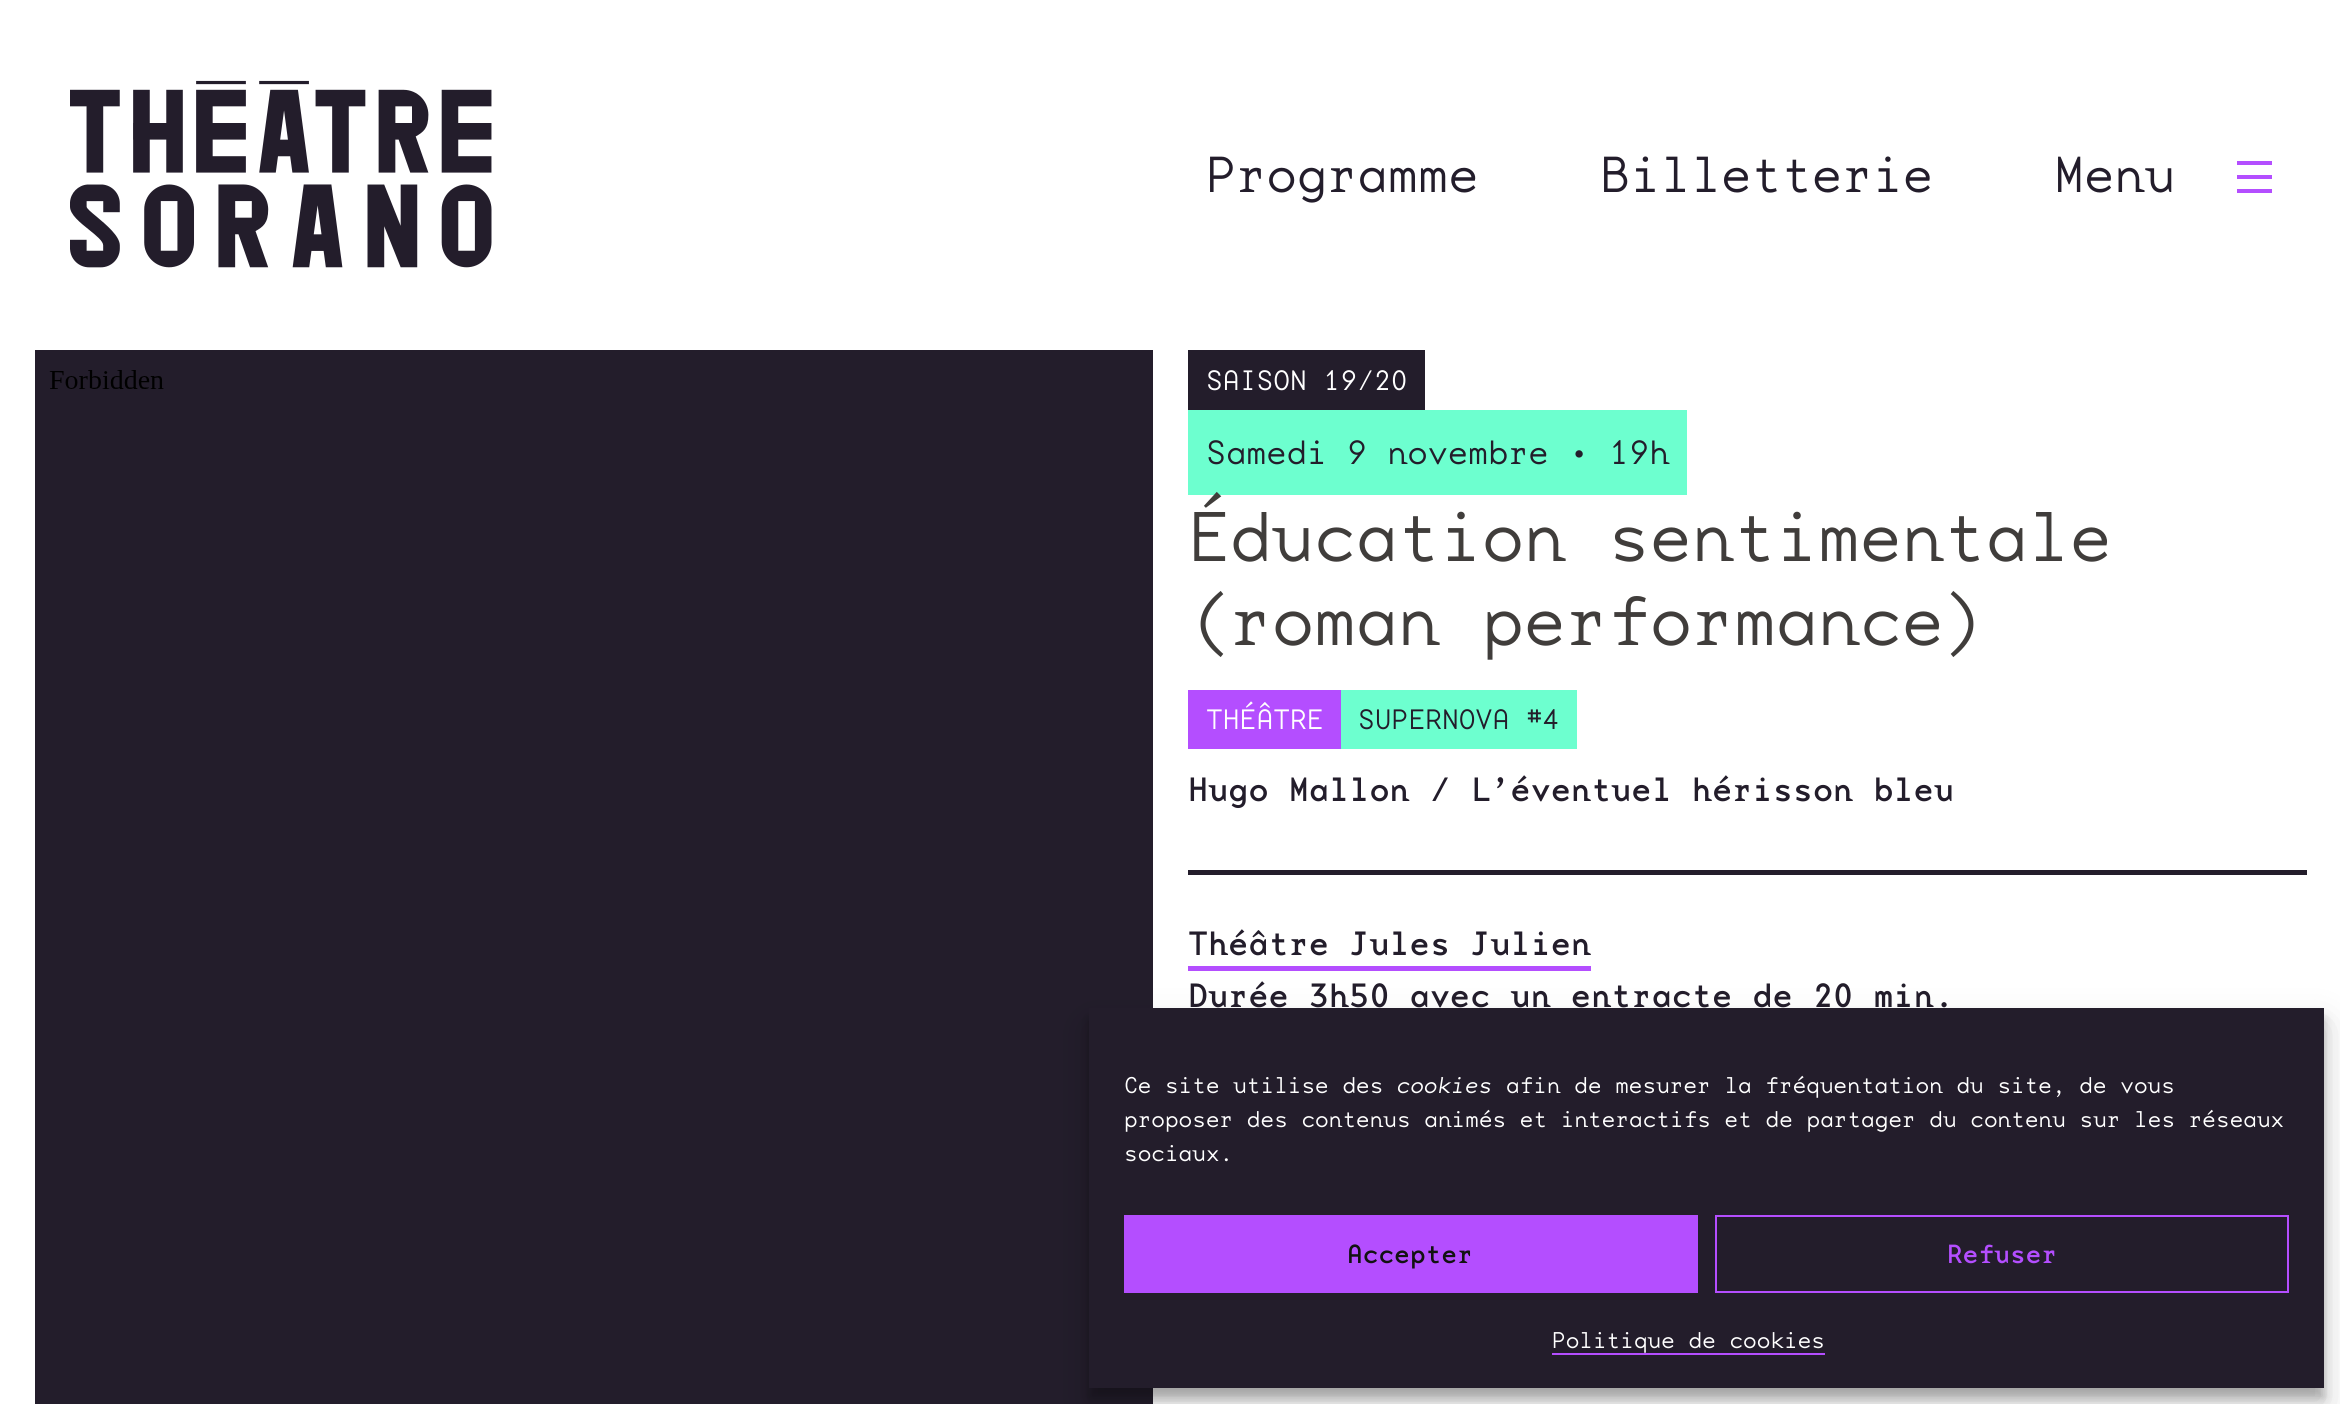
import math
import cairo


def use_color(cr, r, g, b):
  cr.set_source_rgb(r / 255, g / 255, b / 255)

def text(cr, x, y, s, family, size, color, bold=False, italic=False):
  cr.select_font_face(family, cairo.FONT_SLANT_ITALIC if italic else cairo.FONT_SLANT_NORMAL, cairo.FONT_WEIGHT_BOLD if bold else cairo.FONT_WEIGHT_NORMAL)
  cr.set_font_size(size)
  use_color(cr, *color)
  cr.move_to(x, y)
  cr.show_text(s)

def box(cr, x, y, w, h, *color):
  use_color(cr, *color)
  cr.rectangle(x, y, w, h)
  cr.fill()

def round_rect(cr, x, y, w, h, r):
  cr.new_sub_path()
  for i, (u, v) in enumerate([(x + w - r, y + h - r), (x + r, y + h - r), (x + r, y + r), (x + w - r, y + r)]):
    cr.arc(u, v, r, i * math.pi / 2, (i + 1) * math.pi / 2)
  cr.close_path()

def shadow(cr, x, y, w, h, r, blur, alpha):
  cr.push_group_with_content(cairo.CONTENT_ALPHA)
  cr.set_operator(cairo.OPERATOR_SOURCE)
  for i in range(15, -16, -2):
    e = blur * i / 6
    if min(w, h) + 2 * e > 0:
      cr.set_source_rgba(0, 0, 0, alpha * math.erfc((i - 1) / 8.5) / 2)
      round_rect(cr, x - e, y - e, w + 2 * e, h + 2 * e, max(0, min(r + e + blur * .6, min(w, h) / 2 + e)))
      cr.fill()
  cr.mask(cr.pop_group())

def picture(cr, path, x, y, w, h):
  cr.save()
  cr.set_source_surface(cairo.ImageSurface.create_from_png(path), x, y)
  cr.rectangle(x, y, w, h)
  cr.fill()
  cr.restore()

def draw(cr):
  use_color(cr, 255, 255, 255)
  cr.paint()
  picture(cr, "img_01.png", 70, 80, 422, 188)
  box(cr, 2237, 161, 35, 4, 180, 78, 255)
  box(cr, 2237, 175, 35, 4, 180, 78, 255)
  box(cr, 2237, 189, 35, 4, 180, 78, 255)
  box(cr, 35, 350, 1118, 1054, 35, 29, 43)
  picture(cr, "img_02.png", 49, 370, 115, 19)
  box(cr, 1188, 350, 237, 60, 35, 29, 43)
  box(cr, 1188, 410, 499, 85, 109, 255, 207)
  box(cr, 1188, 690, 153, 59, 180, 78, 255)
  box(cr, 1341, 690, 236, 59, 109, 255, 207)
  box(cr, 1188, 870, 1119, 5, 35, 29, 43)
  box(cr, 1188, 966, 403, 5, 180, 78, 255)
  use_color(cr, 0, 0, 0)
  shadow(cr, 1089, 1019, 1235, 379, 0, 5, 0.23)
  shadow(cr, 1089, 1026, 1235, 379, 0, 17.5, 0.19)
  box(cr, 1089, 1008, 1235, 380, 35, 29, 43)
  box(cr, 1124, 1215, 574, 78, 180, 78, 255)
  cr.rectangle(1716, 1216, 572, 76)
  cr.stroke()
  box(cr, 1552, 1353, 273, 2, 180, 78, 255)
  text(cr, 1206, 192, "Programme", "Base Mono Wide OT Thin", 50.5, (35, 29, 43))
  text(cr, 1600, 192, "Billetterie", "Base Mono Wide OT Thin", 50.5, (35, 29, 43))
  text(cr, 2054, 192, "Menu", "Base Mono Wide OT Thin", 50.5, (35, 29, 43))
  text(cr, 1206, 390, "SAISON 19/20", "Base Mono Wide OT Thin", 28, (255, 255, 255))
  text(cr, 1206, 464, "Samedi 9 novembre • 19h", "Base Mono Wide OT Thin", 33.6, (35, 29, 43))
  text(cr, 1188, 561, "Éducation sentimentale", "Base Mono Wide OT Thin", 70, (64, 61, 59))
  text(cr, 1188, 645, "(roman performance)", "Base Mono Wide OT Thin", 70, (64, 61, 59))
  text(cr, 1206, 729, "THÉÂTRE", "Base Mono Wide OT Thin", 28, (255, 255, 255))
  text(cr, 1358, 729, "SUPERNOVA #4", "Base Mono Wide OT Thin", 28, (35, 29, 43))
  text(cr, 1188, 801, "Hugo Mallon / L’éventuel hérisson bleu", "Base Mono Wide OT Medium", 33.6, (35, 29, 43))
  text(cr, 1188, 955, "Théâtre Jules Julien", "Base Mono Wide OT Medium", 33.6, (35, 29, 43))
  text(cr, 1188, 1007, "Durée 3h50 avec un entracte de 20 min.", "Base Mono Wide OT Medium", 33.6, (35, 29, 43))
  text(cr, 1124, 1093, "Ce site utilise des", "Base Mono Wide OT Thin", 22.75, (255, 255, 255))
  text(cr, 1397, 1093, "cookies", "Base Mono Wide OT Thin", 22.75, (255, 255, 255), italic=True)
  text(cr, 1506, 1093, "afin de mesurer la fréquentation du site, de vous", "Base Mono Wide OT Thin", 22.75, (255, 255, 255))
  text(cr, 1124, 1127, "proposer des contenus animés et interactifs et de partager du contenu sur les réseaux", "Base Mono Wide OT Thin", 22.75, (255, 255, 255))
  text(cr, 1124, 1161, "sociaux.", "Base Mono Wide OT Thin", 22.75, (255, 255, 255))
  text(cr, 1347, 1263, "Accepter", "Base Mono Wide OT Medium", 26.25, (18, 18, 18))
  text(cr, 1947, 1263, "Refuser", "Base Mono Wide OT Medium", 26.25, (180, 78, 255))
  text(cr, 1552, 1348, "Politique de cookies", "Base Mono Wide OT Thin", 22.75, (255, 255, 255))


surface = cairo.ImageSurface(cairo.FORMAT_RGB24, 2340, 1404)
cr = cairo.Context(surface)
options = cairo.FontOptions()
options.set_hint_metrics(cairo.HINT_METRICS_OFF)
options.set_hint_style(cairo.HINT_STYLE_NONE)
cr.set_font_options(options)
cr.set_miter_limit(4)
draw(cr)
surface.write_to_png("out.png")
